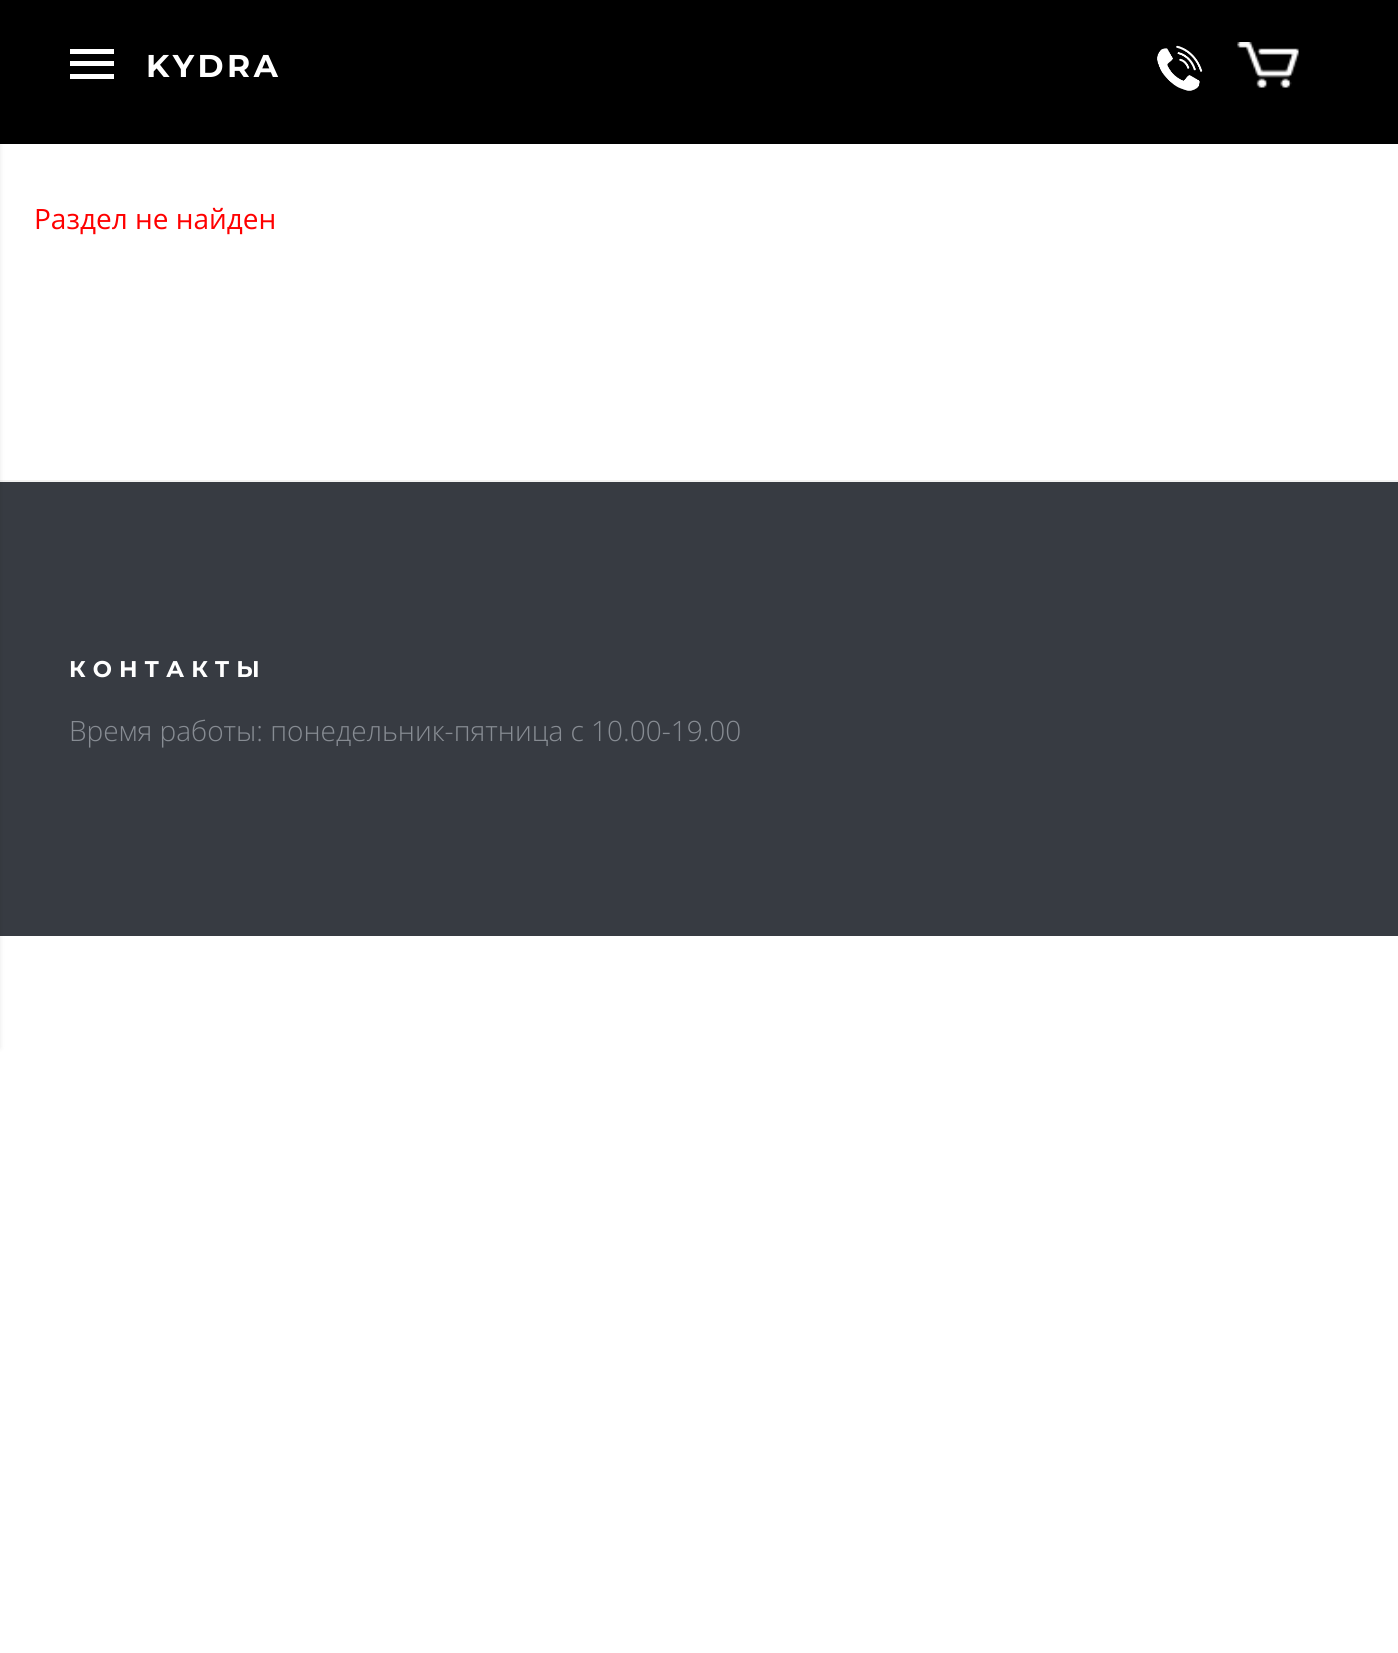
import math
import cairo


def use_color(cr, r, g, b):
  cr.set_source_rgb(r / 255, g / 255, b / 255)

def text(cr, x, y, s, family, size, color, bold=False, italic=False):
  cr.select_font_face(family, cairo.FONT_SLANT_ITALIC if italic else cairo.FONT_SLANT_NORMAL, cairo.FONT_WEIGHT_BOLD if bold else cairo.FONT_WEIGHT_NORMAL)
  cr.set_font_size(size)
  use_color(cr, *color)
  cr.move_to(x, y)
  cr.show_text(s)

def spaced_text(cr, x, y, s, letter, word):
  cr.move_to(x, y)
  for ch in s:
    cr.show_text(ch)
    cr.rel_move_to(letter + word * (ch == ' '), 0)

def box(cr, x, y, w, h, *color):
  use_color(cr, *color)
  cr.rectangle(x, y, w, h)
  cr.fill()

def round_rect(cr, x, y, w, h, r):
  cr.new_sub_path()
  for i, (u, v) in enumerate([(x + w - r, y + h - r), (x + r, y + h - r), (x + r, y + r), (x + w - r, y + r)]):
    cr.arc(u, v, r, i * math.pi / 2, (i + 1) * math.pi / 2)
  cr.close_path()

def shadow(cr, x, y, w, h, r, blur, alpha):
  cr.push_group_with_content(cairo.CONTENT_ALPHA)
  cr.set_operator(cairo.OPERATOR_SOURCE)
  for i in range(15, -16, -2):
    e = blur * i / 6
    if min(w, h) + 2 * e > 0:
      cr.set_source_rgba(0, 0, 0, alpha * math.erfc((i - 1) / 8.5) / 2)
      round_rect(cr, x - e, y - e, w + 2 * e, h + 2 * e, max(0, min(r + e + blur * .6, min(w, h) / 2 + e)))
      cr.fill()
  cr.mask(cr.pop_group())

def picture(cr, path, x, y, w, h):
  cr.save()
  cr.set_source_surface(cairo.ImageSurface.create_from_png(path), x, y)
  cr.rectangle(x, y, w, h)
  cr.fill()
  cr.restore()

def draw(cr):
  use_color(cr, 255, 255, 255)
  cr.paint()
  box(cr, 0, 480, 1398, 2, 242, 242, 242)
  box(cr, 0, 482, 1398, 454, 55, 59, 66)
  use_color(cr, 0, 0, 0)
  shadow(cr, -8, 144, 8, 904, 0, 2.5, 0.1)
  box(cr, 0, 0, 1398, 144, 0, 0, 0)
  box(cr, 70, 61, 44, 5, 255, 255, 255)
  box(cr, 70, 49, 44, 5, 255, 255, 255)
  box(cr, 70, 74, 44, 5, 255, 255, 255)
  picture(cr, "img_01.png", 1157, 45, 46, 46)
  picture(cr, "img_02.png", 1237, 42, 62, 46)
  cr.select_font_face("Montserrat", cairo.FONT_SLANT_NORMAL, cairo.FONT_WEIGHT_BOLD)
  cr.set_font_size(31.5)
  spaced_text(cr, 146, 77, "KYDRA", 3.5, 0)
  text(cr, 34, 229, "Раздел не найден", "Open Sans", 28, (255, 0, 0))
  cr.select_font_face("Montserrat", cairo.FONT_SLANT_NORMAL, cairo.FONT_WEIGHT_BOLD)
  cr.set_font_size(22.75)
  use_color(cr, 255, 255, 255)
  spaced_text(cr, 69, 677, "КОНТАКТЫ", 7, 0)
  text(cr, 69, 741, "Время работы: понедельник-пятница с 10.00-19.00", "Open Sans Light", 28, (135, 140, 147))


surface = cairo.ImageSurface(cairo.FORMAT_RGB24, 1398, 1653)
cr = cairo.Context(surface)
options = cairo.FontOptions()
options.set_hint_metrics(cairo.HINT_METRICS_OFF)
options.set_hint_style(cairo.HINT_STYLE_NONE)
cr.set_font_options(options)
cr.set_miter_limit(4)
draw(cr)
surface.write_to_png("out.png")
